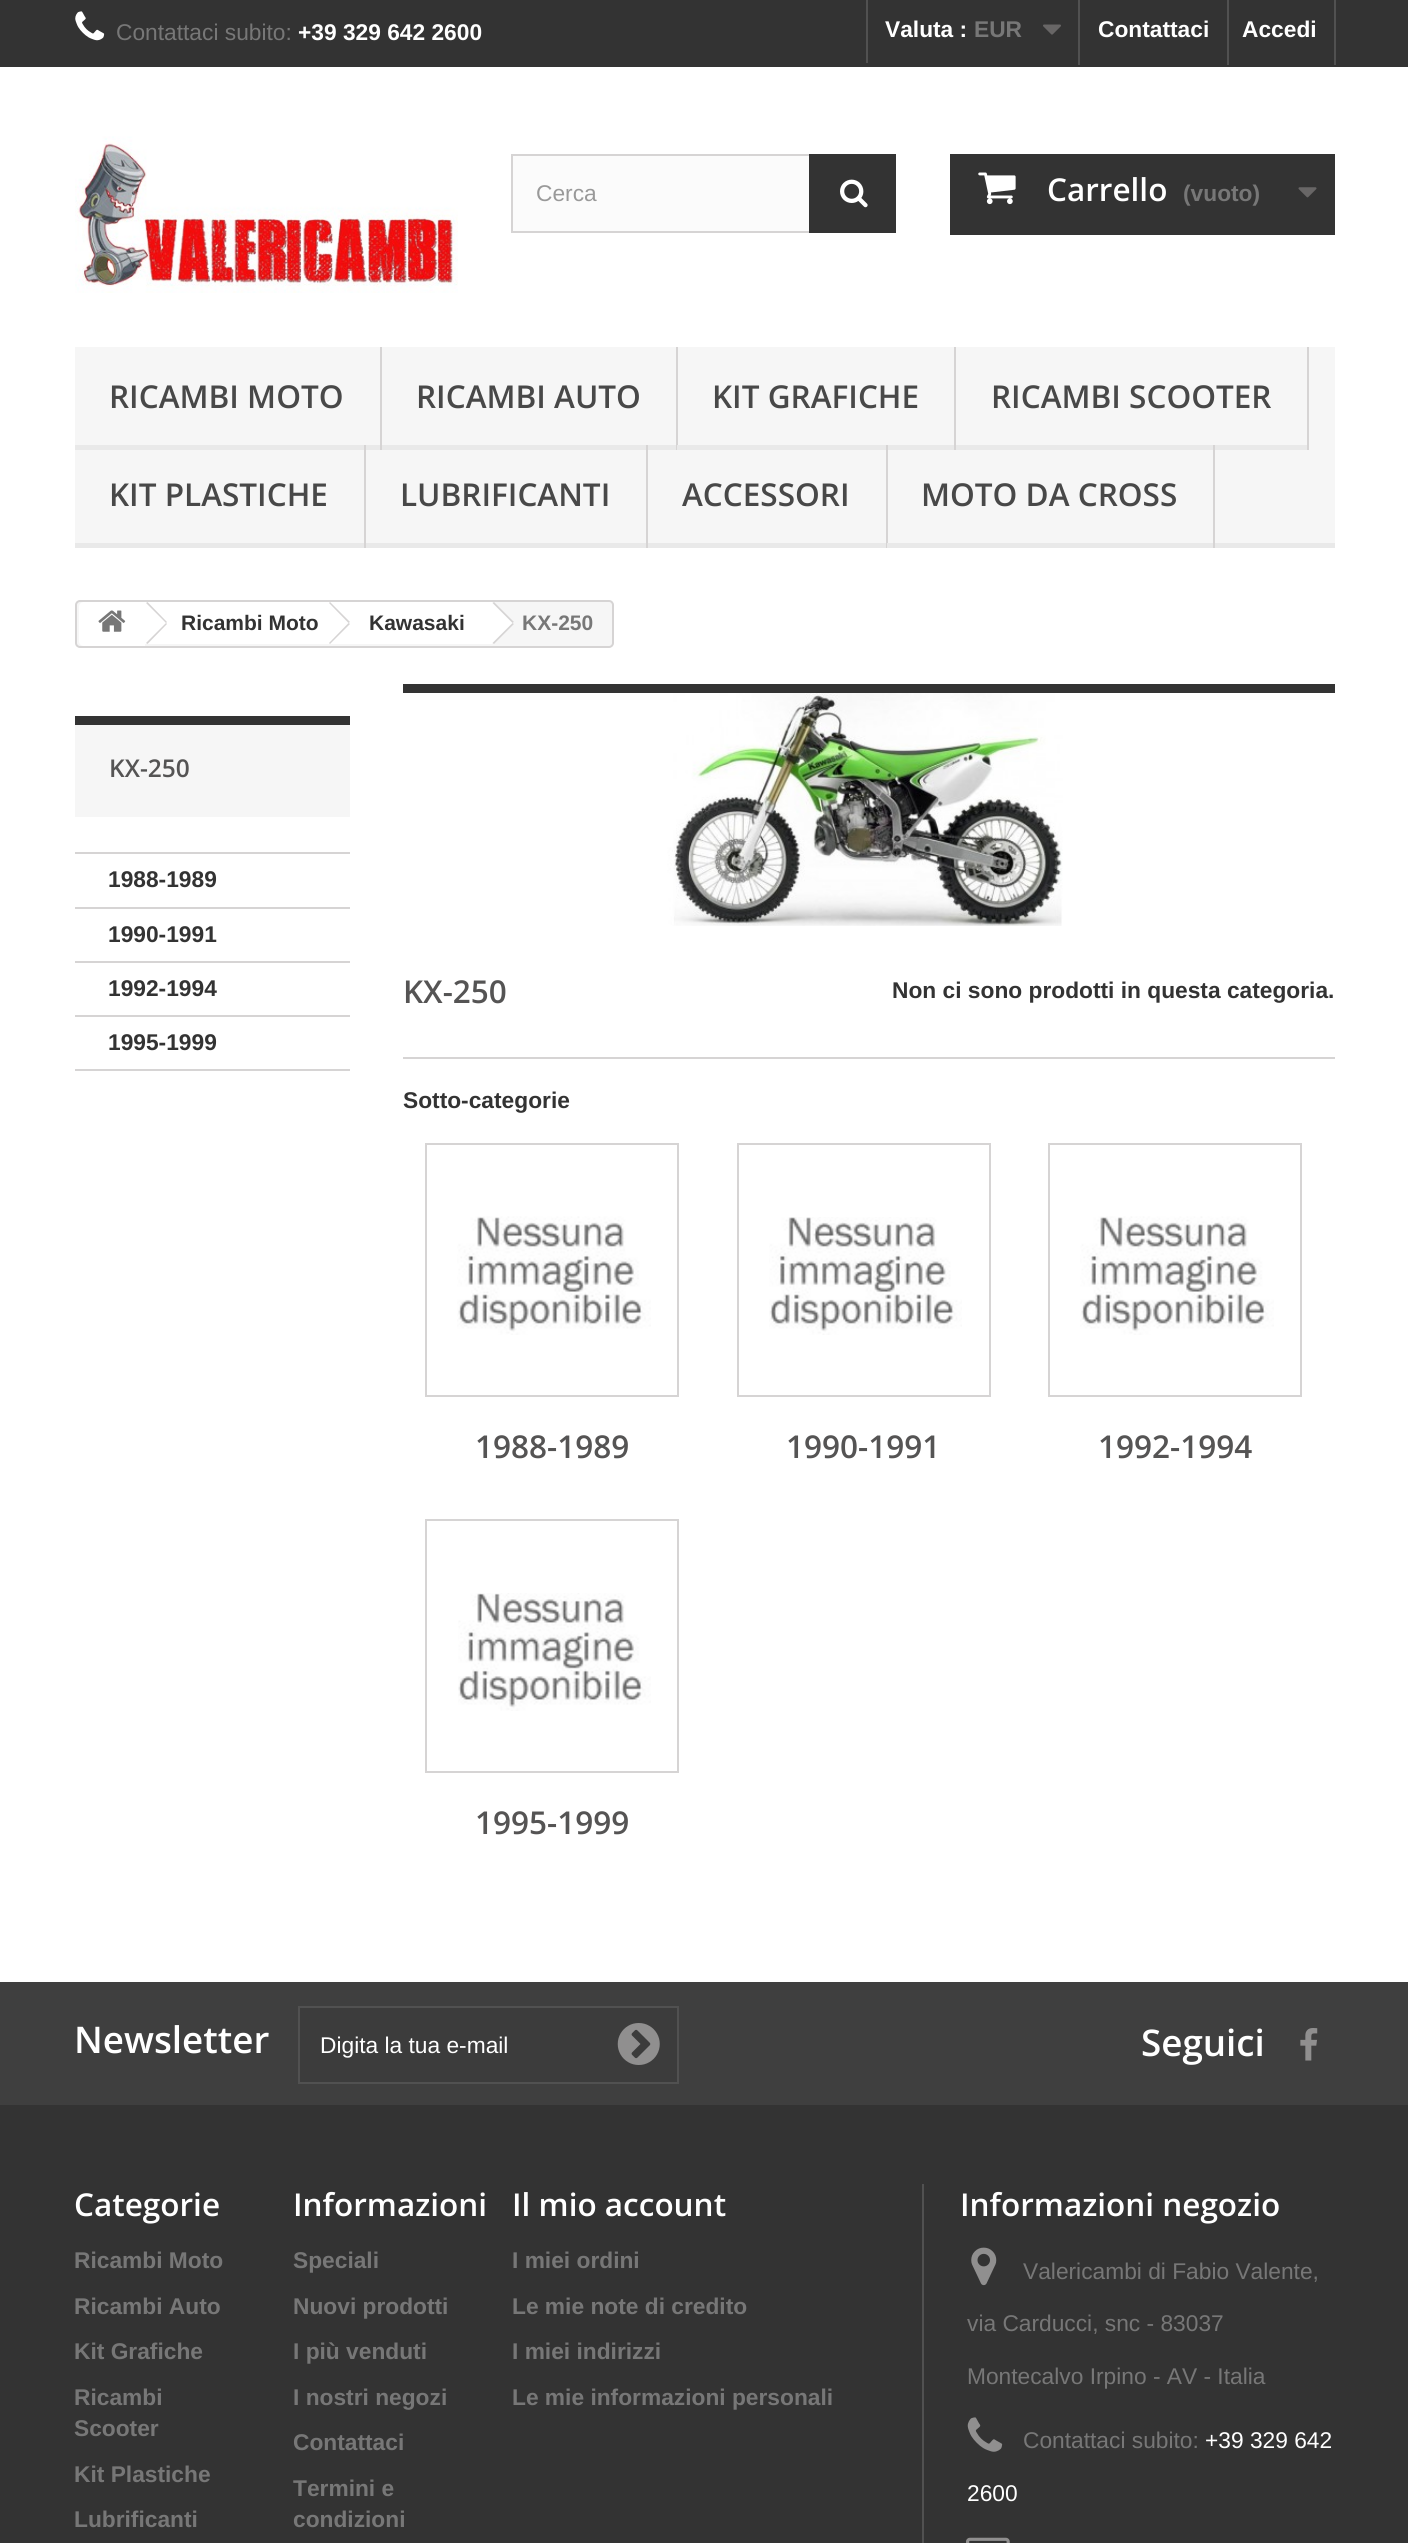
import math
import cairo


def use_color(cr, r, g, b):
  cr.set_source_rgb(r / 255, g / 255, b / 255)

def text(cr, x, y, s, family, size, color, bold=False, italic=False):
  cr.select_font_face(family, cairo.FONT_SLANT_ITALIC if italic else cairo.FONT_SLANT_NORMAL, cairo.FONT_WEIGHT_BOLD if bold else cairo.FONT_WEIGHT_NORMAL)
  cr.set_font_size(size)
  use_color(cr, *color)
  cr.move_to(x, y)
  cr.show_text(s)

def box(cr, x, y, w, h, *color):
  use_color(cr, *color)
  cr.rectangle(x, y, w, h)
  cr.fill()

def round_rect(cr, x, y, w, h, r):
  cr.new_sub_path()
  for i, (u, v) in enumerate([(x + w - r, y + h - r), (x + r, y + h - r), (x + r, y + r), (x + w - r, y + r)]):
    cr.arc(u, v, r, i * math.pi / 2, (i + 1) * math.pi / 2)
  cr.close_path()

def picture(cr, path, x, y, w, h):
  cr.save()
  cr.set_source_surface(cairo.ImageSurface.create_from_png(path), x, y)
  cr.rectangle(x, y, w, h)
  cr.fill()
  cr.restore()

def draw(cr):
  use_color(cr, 255, 255, 255)
  cr.paint()
  box(cr, 0, 0, 1408, 67, 51, 51, 51)
  picture(cr, "img_01.png", 75, 11, 30, 30)
  box(cr, 866, 0, 2, 63, 81, 81, 81)
  picture(cr, "img_02.png", 1043, 24, 18, 11)
  box(cr, 1078, 0, 2, 65, 81, 81, 81)
  box(cr, 1334, 0, 2, 65, 81, 81, 81)
  box(cr, 1227, 0, 2, 65, 81, 81, 81)
  picture(cr, "img_03.png", 75, 136, 383, 157)
  box(cr, 513, 156, 296, 75, 251, 251, 251)
  cr.rectangle(512, 155, 383, 77)
  use_color(cr, 214, 212, 212)
  cr.stroke()
  box(cr, 809, 154, 87, 79, 51, 51, 51)
  picture(cr, "img_04.png", 840, 179, 28, 29)
  box(cr, 950, 154, 385, 81, 51, 51, 51)
  picture(cr, "img_05.png", 978, 172, 38, 33)
  picture(cr, "img_06.png", 1298, 187, 19, 11)
  box(cr, 75, 347, 1260, 196, 246, 246, 246)
  box(cr, 75, 543, 1260, 5, 233, 233, 233)
  box(cr, 380, 347, 2, 103, 214, 212, 212)
  box(cr, 75, 445, 305, 5, 233, 233, 233)
  box(cr, 676, 347, 2, 103, 214, 212, 212)
  box(cr, 382, 445, 294, 5, 233, 233, 233)
  box(cr, 954, 347, 2, 103, 214, 212, 212)
  box(cr, 677, 445, 277, 5, 233, 233, 233)
  box(cr, 1307, 347, 2, 103, 214, 212, 212)
  box(cr, 956, 445, 351, 5, 233, 233, 233)
  box(cr, 364, 445, 2, 103, 214, 212, 212)
  box(cr, 646, 445, 2, 103, 214, 212, 212)
  box(cr, 886, 445, 2, 103, 214, 212, 212)
  box(cr, 1213, 445, 2, 103, 214, 212, 212)
  box(cr, 887, 543, 1, 5, 233, 233, 233)
  use_color(cr, 246, 246, 246)
  round_rect(cr, 76, 601, 537, 46, 4)
  cr.fill_preserve()
  use_color(cr, 214, 212, 212)
  cr.stroke()
  use_color(cr, 255, 255, 255)
  cr.new_path()
  cr.move_to(84, 602)
  cr.line_to(145, 602)
  cr.line_to(145, 646)
  cr.line_to(84, 646)
  cr.curve_to(81, 646, 79, 644, 79, 641)
  cr.line_to(79, 607)
  cr.curve_to(79, 604, 81, 602, 84, 602)
  cr.close_path()
  cr.fill()
  picture(cr, "img_07.png", 98, 610, 28, 22)
  box(cr, 145, 602, 186, 42, 255, 255, 255)
  use_color(cr, 214, 212, 212)
  cr.new_path()
  cr.move_to(147.5, 602)
  cr.line_to(167, 622)
  cr.line_to(166, 623)
  cr.line_to(146, 603)
  cr.close_path()
  cr.move_to(166, 623)
  cr.line_to(167, 624)
  cr.line_to(147.5, 644)
  cr.line_to(146, 643)
  cr.close_path()
  cr.fill()
  use_color(cr, 255, 255, 255)
  cr.new_path()
  cr.move_to(349, 603)
  cr.line_to(366, 621)
  cr.curve_to(367, 622, 367, 624, 366, 625)
  cr.line_to(349, 643)
  cr.curve_to(347, 644, 345, 644, 344, 643)
  cr.line_to(326, 625)
  cr.curve_to(325, 624, 325, 622, 326, 621)
  cr.line_to(344, 603)
  cr.curve_to(345, 602, 347, 602, 349, 603)
  cr.close_path()
  cr.fill()
  box(cr, 331, 602, 161, 42, 255, 255, 255)
  use_color(cr, 214, 212, 212)
  cr.new_path()
  cr.move_to(330, 602)
  cr.line_to(350, 622)
  cr.line_to(348.5, 623)
  cr.line_to(329, 603)
  cr.close_path()
  cr.move_to(348.5, 623)
  cr.line_to(350, 624)
  cr.line_to(330, 644)
  cr.line_to(329, 643)
  cr.close_path()
  cr.fill()
  use_color(cr, 255, 255, 255)
  cr.new_path()
  cr.move_to(495, 603)
  cr.line_to(513, 621)
  cr.curve_to(514, 622, 514, 624, 513, 625)
  cr.line_to(495, 643)
  cr.curve_to(494, 644, 492, 644, 490, 643)
  cr.line_to(473, 625)
  cr.curve_to(472, 624, 472, 622, 473, 621)
  cr.line_to(490, 603)
  cr.curve_to(492, 602, 494, 602, 495, 603)
  cr.close_path()
  cr.fill()
  use_color(cr, 214, 212, 212)
  cr.new_path()
  cr.move_to(494, 602)
  cr.line_to(514, 622)
  cr.line_to(512.5, 623)
  cr.line_to(492.5, 603)
  cr.close_path()
  cr.move_to(512.5, 623)
  cr.line_to(514, 624)
  cr.line_to(494, 644)
  cr.line_to(492.5, 643)
  cr.close_path()
  cr.fill()
  box(cr, 75, 725, 275, 92, 246, 246, 246)
  box(cr, 75, 716, 275, 9, 51, 51, 51)
  box(cr, 75, 852, 275, 2, 214, 212, 212)
  box(cr, 75, 907, 275, 2, 214, 212, 212)
  box(cr, 75, 961, 275, 2, 214, 212, 212)
  box(cr, 75, 1015, 275, 2, 214, 212, 212)
  box(cr, 75, 1069, 275, 2, 214, 212, 212)
  box(cr, 403, 684, 932, 9, 51, 51, 51)
  picture(cr, "img_08.png", 403, 693, 932, 233)
  box(cr, 403, 1057, 932, 2, 214, 212, 212)
  cr.rectangle(426, 1144, 252, 252)
  cr.stroke()
  picture(cr, "img_09.png", 457, 1216, 194, 119)
  cr.rectangle(738, 1144, 252, 252)
  cr.stroke()
  picture(cr, "img_10.png", 769, 1217, 193, 118)
  cr.rectangle(1049, 1144, 252, 252)
  cr.stroke()
  picture(cr, "img_11.png", 1080, 1216, 194, 119)
  cr.rectangle(426, 1520, 252, 252)
  cr.stroke()
  picture(cr, "img_12.png", 458, 1593, 193, 118)
  box(cr, 0, 2105, 1408, 438, 51, 51, 51)
  box(cr, 0, 1982, 1408, 123, 63, 63, 63)
  use_color(cr, 60, 60, 60)
  cr.rectangle(299, 2007, 379, 76)
  cr.fill_preserve()
  use_color(cr, 81, 81, 81)
  cr.stroke()
  picture(cr, "img_13.png", 617, 2023, 43, 42)
  picture(cr, "img_14.png", 1300, 2028, 18, 33)
  box(cr, 922, 2184, 2, 359, 81, 81, 81)
  picture(cr, "img_15.png", 971, 2247, 26, 39)
  picture(cr, "img_16.png", 967, 2417, 36, 35)
  picture(cr, "img_17.png", 966, 2537, 44, 6)
  text(cr, 116, 40, "Contattaci subito:", "Liberation Sans", 22.75, (119, 119, 119))
  text(cr, 298, 40, "+39 329 642 2600", "Liberation Sans", 22.75, (255, 255, 255), bold=True)
  text(cr, 885, 37, "Valuta :", "Liberation Sans", 22.75, (255, 255, 255), bold=True)
  text(cr, 974, 37, "EUR", "Liberation Sans", 22.75, (119, 119, 119), bold=True)
  text(cr, 1098, 37, "Contattaci", "Liberation Sans", 22.75, (255, 255, 255), bold=True)
  text(cr, 1242, 37, "Accedi", "Liberation Sans", 22.75, (255, 255, 255), bold=True)
  text(cr, 536, 201, "Cerca", "Liberation Sans", 22.75, (153, 153, 153))
  text(cr, 1047, 201, "Carrello", "Open Sans SemiBold", 31.5, (255, 255, 255))
  text(cr, 1183, 201, "(vuoto)", "Liberation Sans", 22.75, (119, 119, 119), bold=True)
  text(cr, 109, 408, "RICAMBI MOTO", "Open Sans SemiBold", 31.5, (72, 72, 72))
  text(cr, 416, 408, "RICAMBI AUTO", "Open Sans SemiBold", 31.5, (72, 72, 72))
  text(cr, 712, 408, "KIT GRAFICHE", "Open Sans SemiBold", 31.5, (72, 72, 72))
  text(cr, 991, 408, "RICAMBI SCOOTER", "Open Sans SemiBold", 31.5, (72, 72, 72))
  text(cr, 109, 506, "KIT PLASTICHE", "Open Sans SemiBold", 31.5, (72, 72, 72))
  text(cr, 400, 506, "LUBRIFICANTI", "Open Sans SemiBold", 31.5, (72, 72, 72))
  text(cr, 682, 506, "ACCESSORI", "Open Sans SemiBold", 31.5, (72, 72, 72))
  text(cr, 921, 506, "MOTO DA CROSS", "Open Sans SemiBold", 31.5, (72, 72, 72))
  text(cr, 181, 630, "Ricambi Moto", "Liberation Sans", 21, (51, 51, 51), bold=True)
  text(cr, 369, 630, "Kawasaki", "Liberation Sans", 21, (51, 51, 51), bold=True)
  text(cr, 522, 630, "KX-250", "Liberation Sans", 21, (119, 119, 119), bold=True)
  text(cr, 109, 777, "KX-250", "Open Sans SemiBold", 24.5, (85, 84, 84))
  text(cr, 108, 887, "1988-1989", "Liberation Sans", 22.75, (51, 51, 51), bold=True)
  text(cr, 108, 942, "1990-1991", "Liberation Sans", 22.75, (51, 51, 51), bold=True)
  text(cr, 108, 996, "1992-1994", "Liberation Sans", 22.75, (51, 51, 51), bold=True)
  text(cr, 108, 1050, "1995-1999", "Liberation Sans", 22.75, (51, 51, 51), bold=True)
  text(cr, 403, 1003, "KX-250", "Open Sans SemiBold", 31.5, (85, 84, 84))
  text(cr, 892, 998, "Non ci sono prodotti in questa categoria.", "Liberation Sans", 22.75, (51, 51, 51), bold=True)
  text(cr, 403, 1108, "Sotto-categorie", "Liberation Sans", 22.75, (51, 51, 51), bold=True)
  text(cr, 475, 1458, "1988-1989", "Open Sans SemiBold", 31.5, (85, 84, 84))
  text(cr, 786, 1458, "1990-1991", "Open Sans SemiBold", 31.5, (85, 84, 84))
  text(cr, 1098, 1458, "1992-1994", "Open Sans SemiBold", 31.5, (85, 84, 84))
  text(cr, 475, 1834, "1995-1999", "Open Sans SemiBold", 31.5, (85, 84, 84))
  text(cr, 74, 2053, "Newsletter", "Open Sans SemiBold", 36.75, (255, 255, 255))
  text(cr, 320, 2053, "Digita la tua e-mail", "Liberation Sans", 22.75, (255, 255, 255))
  text(cr, 1141, 2056, "Seguici", "Open Sans SemiBold", 36.75, (255, 255, 255))
  text(cr, 74, 2216, "Categorie", "Open Sans SemiBold", 31.5, (255, 255, 255))
  text(cr, 74, 2268, "Ricambi Moto", "Liberation Sans", 22.75, (119, 119, 119), bold=True)
  text(cr, 74, 2314, "Ricambi Auto", "Liberation Sans", 22.75, (119, 119, 119), bold=True)
  text(cr, 74, 2359, "Kit Grafiche", "Liberation Sans", 22.75, (119, 119, 119), bold=True)
  text(cr, 74, 2405, "Ricambi", "Liberation Sans", 22.75, (119, 119, 119), bold=True)
  text(cr, 74, 2436, "Scooter", "Liberation Sans", 22.75, (119, 119, 119), bold=True)
  text(cr, 74, 2482, "Kit Plastiche", "Liberation Sans", 22.75, (119, 119, 119), bold=True)
  text(cr, 74, 2527, "Lubrificanti", "Liberation Sans", 22.75, (119, 119, 119), bold=True)
  text(cr, 293, 2216, "Informazioni", "Open Sans SemiBold", 31.5, (255, 255, 255))
  text(cr, 293, 2268, "Speciali", "Liberation Sans", 22.75, (119, 119, 119), bold=True)
  text(cr, 293, 2314, "Nuovi prodotti", "Liberation Sans", 22.75, (119, 119, 119), bold=True)
  text(cr, 293, 2359, "I più venduti", "Liberation Sans", 22.75, (119, 119, 119), bold=True)
  text(cr, 293, 2405, "I nostri negozi", "Liberation Sans", 22.75, (119, 119, 119), bold=True)
  text(cr, 293, 2450, "Contattaci", "Liberation Sans", 22.75, (119, 119, 119), bold=True)
  text(cr, 293, 2496, "Termini e", "Liberation Sans", 22.75, (119, 119, 119), bold=True)
  text(cr, 293, 2527, "condizioni", "Liberation Sans", 22.75, (119, 119, 119), bold=True)
  text(cr, 512, 2216, "Il mio account", "Open Sans SemiBold", 31.5, (255, 255, 255))
  text(cr, 512, 2268, "I miei ordini", "Liberation Sans", 22.75, (119, 119, 119), bold=True)
  text(cr, 512, 2314, "Le mie note di credito", "Liberation Sans", 22.75, (119, 119, 119), bold=True)
  text(cr, 512, 2359, "I miei indirizzi", "Liberation Sans", 22.75, (119, 119, 119), bold=True)
  text(cr, 512, 2405, "Le mie informazioni personali", "Liberation Sans", 22.75, (119, 119, 119), bold=True)
  text(cr, 960, 2216, "Informazioni negozio", "Open Sans SemiBold", 31.5, (255, 255, 255))
  text(cr, 1023, 2279, "Valericambi di Fabio Valente,", "Liberation Sans", 22.75, (119, 119, 119))
  text(cr, 967, 2331, "via Carducci, snc - 83037", "Liberation Sans", 22.75, (119, 119, 119))
  text(cr, 967, 2384, "Montecalvo Irpino - AV - Italia", "Liberation Sans", 22.75, (119, 119, 119))
  text(cr, 1023, 2448, "Contattaci subito:", "Liberation Sans", 22.75, (119, 119, 119))
  text(cr, 1205, 2448, "+39 329 642", "Liberation Sans", 22.75, (255, 255, 255))
  text(cr, 967, 2501, "2600", "Liberation Sans", 22.75, (255, 255, 255))


surface = cairo.ImageSurface(cairo.FORMAT_RGB24, 1408, 2543)
cr = cairo.Context(surface)
options = cairo.FontOptions()
options.set_hint_metrics(cairo.HINT_METRICS_OFF)
options.set_hint_style(cairo.HINT_STYLE_NONE)
cr.set_font_options(options)
cr.set_miter_limit(4)
draw(cr)
surface.write_to_png("out.png")
